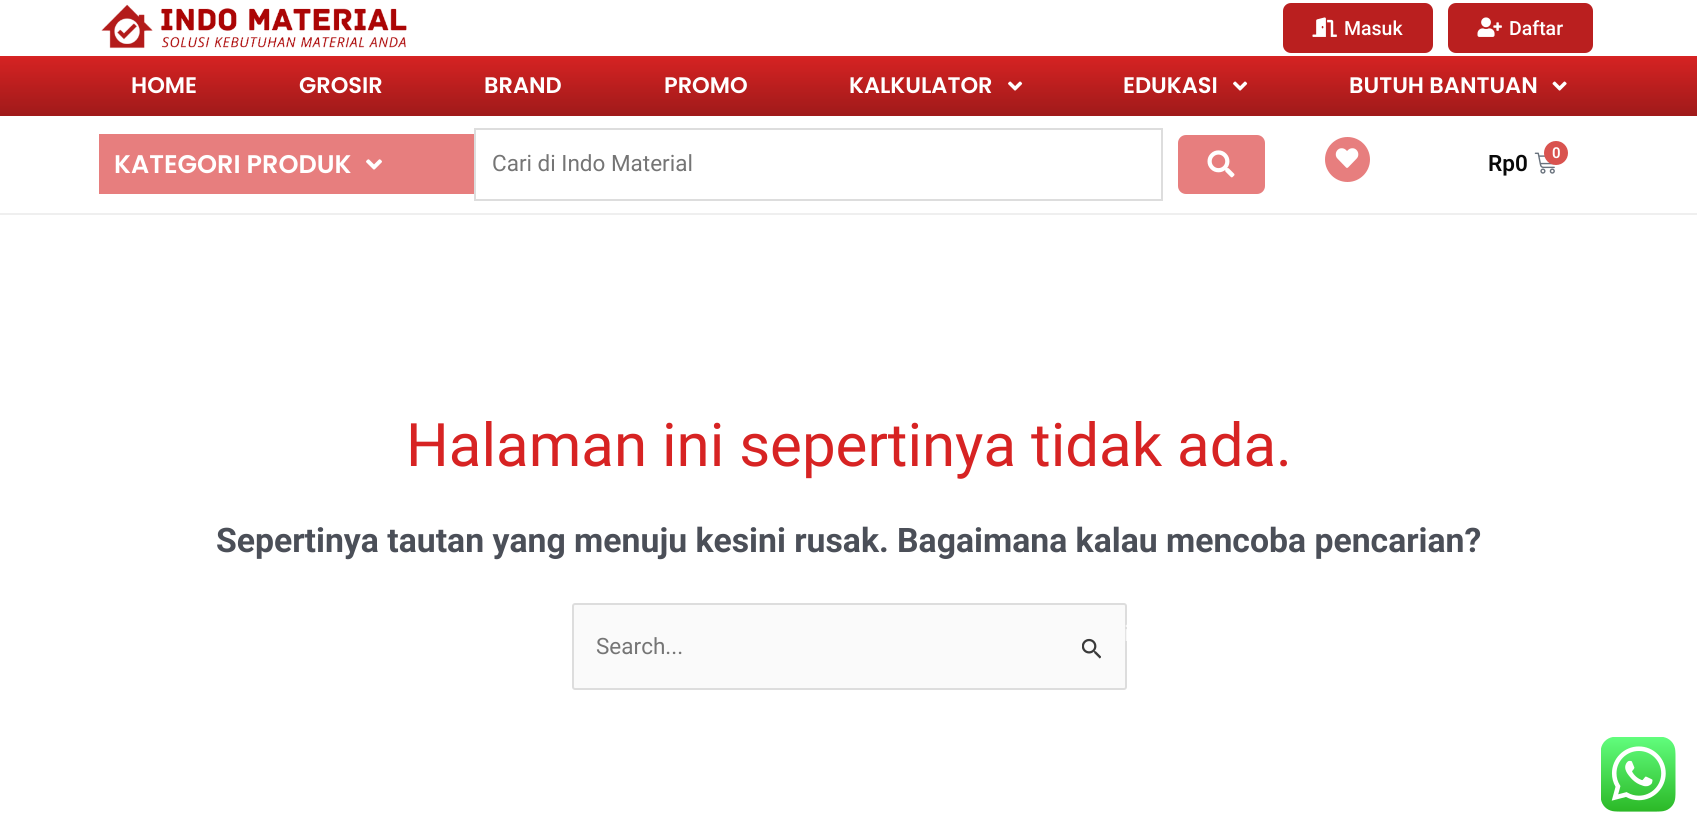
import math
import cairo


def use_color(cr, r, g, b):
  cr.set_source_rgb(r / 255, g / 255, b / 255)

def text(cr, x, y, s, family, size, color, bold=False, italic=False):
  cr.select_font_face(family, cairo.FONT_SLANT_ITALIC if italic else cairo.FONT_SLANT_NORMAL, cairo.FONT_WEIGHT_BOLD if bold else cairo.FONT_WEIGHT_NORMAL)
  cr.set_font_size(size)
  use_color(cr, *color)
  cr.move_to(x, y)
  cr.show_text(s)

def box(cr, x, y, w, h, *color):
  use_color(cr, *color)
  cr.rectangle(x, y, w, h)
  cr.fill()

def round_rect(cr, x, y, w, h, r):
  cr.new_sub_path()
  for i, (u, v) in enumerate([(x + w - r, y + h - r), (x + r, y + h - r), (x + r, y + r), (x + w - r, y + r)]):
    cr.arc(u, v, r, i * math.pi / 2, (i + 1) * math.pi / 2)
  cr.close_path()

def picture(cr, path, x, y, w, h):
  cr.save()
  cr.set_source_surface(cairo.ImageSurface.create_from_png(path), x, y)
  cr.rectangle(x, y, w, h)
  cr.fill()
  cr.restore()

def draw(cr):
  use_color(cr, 255, 255, 255)
  cr.paint()
  picture(cr, "img_01.png", 101, 4, 306, 45)
  use_color(cr, 186, 31, 31)
  round_rect(cr, 1283, 3, 150, 50, 8)
  cr.fill()
  picture(cr, "img_02.png", 1312, 17, 25, 20)
  round_rect(cr, 1448, 3, 145, 50, 8)
  cr.fill()
  picture(cr, "img_03.png", 1477, 17, 25, 20)
  gradient = cairo.LinearGradient(849, 55, 849, 116)
  gradient.add_color_stop_rgba(0, 0.843, 0.137, 0.137, 1)
  gradient.add_color_stop_rgba(1, 0.624, 0.102, 0.102, 1)
  cr.set_source(gradient)
  cr.rectangle(0, 56, 1697, 60)
  cr.fill()
  picture(cr, "img_04.png", 1008, 81, 15, 10)
  picture(cr, "img_04.png", 1233, 81, 15, 10)
  picture(cr, "img_05.png", 1552, 81, 15, 10)
  box(cr, 0, 213, 1697, 2, 239, 239, 239)
  box(cr, 99, 134, 375, 60, 231, 126, 126)
  picture(cr, "img_06.png", 366, 159, 16, 11)
  cr.rectangle(475, 129, 687, 71)
  use_color(cr, 221, 221, 221)
  cr.stroke()
  use_color(cr, 231, 126, 126)
  round_rect(cr, 1178, 135, 87, 59, 8)
  cr.fill()
  picture(cr, "img_07.png", 1207, 150, 28, 28)
  cr.arc(1347.5, 159.5, 22.5, 0, 2 * math.pi)
  cr.fill()
  picture(cr, "img_08.png", 1335, 148, 24, 20)
  picture(cr, "img_09.png", 1534, 152, 21, 22)
  use_color(cr, 217, 83, 79)
  cr.arc(1556, 153, 12, 0, 2 * math.pi)
  cr.fill()
  use_color(cr, 250, 250, 250)
  round_rect(cr, 573, 604, 553, 85, 2)
  cr.fill_preserve()
  use_color(cr, 221, 221, 221)
  cr.stroke()
  picture(cr, "img_10.png", 1082, 638, 19, 21)
  picture(cr, "img_11.png", 1601, 737, 75, 75)
  text(cr, 1344, 35, "Masuk", "Roboto Medium", 19.5, (255, 255, 255))
  text(cr, 1509, 35, "Daftar", "Roboto Medium", 19.5, (255, 255, 255))
  text(cr, 131, 93, "HOME", "Poppins SemiBold", 22.5, (255, 255, 255))
  text(cr, 299, 93, "GROSIR", "Poppins SemiBold", 22.5, (255, 255, 255))
  text(cr, 484, 93, "BRAND", "Poppins SemiBold", 22.5, (255, 255, 255))
  text(cr, 664, 93, "PROMO", "Poppins SemiBold", 22.5, (255, 255, 255))
  text(cr, 849, 93, "KALKULATOR", "Poppins SemiBold", 22.5, (255, 255, 255))
  text(cr, 1123, 93, "EDUKASI", "Poppins SemiBold", 22.5, (255, 255, 255))
  text(cr, 1349, 93, "BUTUH BANTUAN", "Poppins SemiBold", 22.5, (255, 255, 255))
  text(cr, 114, 173, "KATEGORI PRODUK", "Poppins SemiBold", 25.5, (255, 255, 255))
  text(cr, 492, 171, "Cari di Indo Material", "Roboto", 22.5, (117, 117, 117))
  text(cr, 1488, 171, "Rp0", "Roboto SemiBold", 22.5, (9, 9, 9))
  text(cr, 1552, 158, "0", "Roboto SemiBold", 15, (255, 255, 255))
  text(cr, 406, 466, "Halaman ini sepertinya tidak ada.", "Roboto", 60, (215, 35, 35))
  text(cr, 216, 552, "Sepertinya tautan yang menuju kesini rusak. Bagaimana kalau mencoba pencarian?", "Roboto", 33.75, (75, 79, 88), bold=True)
  cr.save()
  round_rect(cr, 1059, 603, 68, 62, 3)
  cr.clip()
  text(cr, 1124, 641, "i", "Roboto", 22.5, (246, 246, 246))
  cr.restore()
  text(cr, 596, 654, "Search...", "Roboto", 22.5, (117, 117, 117))


surface = cairo.ImageSurface(cairo.FORMAT_RGB24, 1697, 833)
cr = cairo.Context(surface)
options = cairo.FontOptions()
options.set_hint_metrics(cairo.HINT_METRICS_OFF)
options.set_hint_style(cairo.HINT_STYLE_NONE)
cr.set_font_options(options)
cr.set_miter_limit(4)
draw(cr)
surface.write_to_png("out.png")
